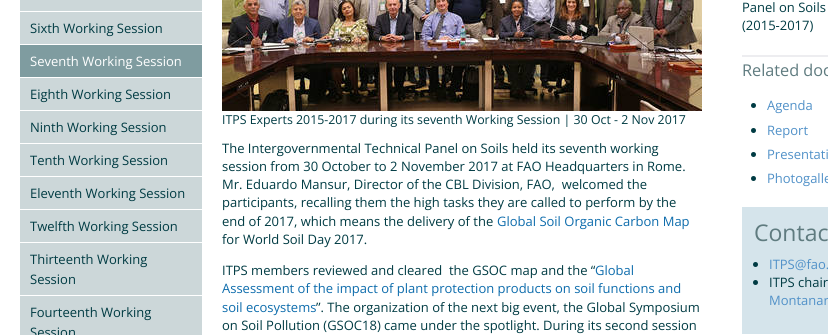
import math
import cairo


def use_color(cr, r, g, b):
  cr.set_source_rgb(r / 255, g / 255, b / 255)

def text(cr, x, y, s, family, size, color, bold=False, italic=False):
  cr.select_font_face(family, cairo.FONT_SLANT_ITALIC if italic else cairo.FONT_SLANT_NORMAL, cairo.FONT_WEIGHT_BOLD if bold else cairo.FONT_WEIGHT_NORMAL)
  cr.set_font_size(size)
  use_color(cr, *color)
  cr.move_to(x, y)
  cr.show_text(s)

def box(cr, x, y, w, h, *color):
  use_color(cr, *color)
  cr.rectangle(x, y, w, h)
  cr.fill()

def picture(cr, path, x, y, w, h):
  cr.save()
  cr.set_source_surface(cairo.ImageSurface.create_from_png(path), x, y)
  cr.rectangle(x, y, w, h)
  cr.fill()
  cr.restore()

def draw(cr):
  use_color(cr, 255, 255, 255)
  cr.paint()
  box(cr, 20, 0, 182, 11, 204, 215, 217)
  box(cr, 20, 12, 182, 32, 204, 215, 217)
  box(cr, 20, 45, 182, 32, 127, 156, 160)
  box(cr, 20, 78, 182, 32, 204, 215, 217)
  box(cr, 20, 111, 182, 32, 204, 215, 217)
  box(cr, 20, 144, 182, 32, 204, 215, 217)
  box(cr, 20, 177, 182, 32, 204, 215, 217)
  box(cr, 20, 210, 182, 32, 204, 215, 217)
  box(cr, 20, 243, 182, 52, 204, 215, 217)
  box(cr, 20, 296, 182, 39, 204, 215, 217)
  picture(cr, "img_01.png", 222, 0, 480, 111)
  box(cr, 742, 55, 86, 2, 237, 237, 240)
  use_color(cr, 0, 59, 67)
  cr.arc(753.5, 105.5, 2.5, 0, 2 * math.pi)
  cr.fill()
  cr.arc(753.5, 130.5, 2.5, 0, 2 * math.pi)
  cr.fill()
  cr.arc(753.5, 154.5, 2.5, 0, 2 * math.pi)
  cr.fill()
  cr.arc(753.5, 178.5, 2.5, 0, 2 * math.pi)
  cr.fill()
  box(cr, 742, 207, 86, 127, 213, 228, 235)
  use_color(cr, 0, 59, 67)
  cr.arc(755.5, 264.5, 2.5, 0, 2 * math.pi)
  cr.fill()
  cr.arc(755.5, 282.5, 2.5, 0, 2 * math.pi)
  cr.fill()
  text(cr, 30, 33, "Sixth Working Session", "Open Sans", 13, (0, 59, 67))
  text(cr, 30, 66, "Seventh Working Session", "Open Sans", 13, (255, 255, 255))
  text(cr, 30, 99, "Eighth Working Session", "Open Sans", 13, (0, 59, 67))
  text(cr, 30, 132, "Ninth Working Session", "Open Sans", 13, (0, 59, 67))
  text(cr, 30, 165, "Tenth Working Session", "Open Sans", 13, (0, 59, 67))
  text(cr, 30, 198, "Eleventh Working Session", "Open Sans", 13, (0, 59, 67))
  text(cr, 30, 231, "Twelfth Working Session", "Open Sans", 13, (0, 59, 67))
  text(cr, 30, 264, "Thirteenth Working", "Open Sans", 13, (0, 59, 67))
  text(cr, 30, 284, "Session", "Open Sans", 13, (0, 59, 67))
  text(cr, 30, 317, "Fourteenth Working", "Open Sans", 13, (0, 59, 67))
  text(cr, 30, 337, "Session", "Open Sans", 13, (0, 59, 67))
  text(cr, 222, 124, "ITPS Experts 2015-2017 during its seventh Working Session | 30 Oct - 2 Nov 2017", "Open Sans", 12.35, (0, 59, 67))
  text(cr, 222, 153, "The Intergovernmental Technical Panel on Soils held its seventh working", "Open Sans", 13, (0, 59, 67))
  text(cr, 222, 171, "session from 30 October to 2 November 2017 at FAO Headquarters in Rome.", "Open Sans", 13, (0, 59, 67))
  text(cr, 222, 189, "Mr. Eduardo Mansur, Director of the CBL Division, FAO,  welcomed the", "Open Sans", 13, (0, 59, 67))
  text(cr, 222, 207, "participants, recalling them the high tasks they are called to perform by the", "Open Sans", 13, (0, 59, 67))
  text(cr, 222, 226, "end of 2017, which means the delivery of the", "Open Sans", 13, (0, 59, 67))
  text(cr, 497, 226, "Global Soil Organic Carbon Map", "Open Sans", 13, (13, 108, 172))
  text(cr, 222, 244, "for World Soil Day 2017.", "Open Sans", 13, (0, 59, 67))
  text(cr, 222, 275, "ITPS members reviewed and cleared  the GSOC map and the “", "Open Sans", 13, (0, 59, 67))
  text(cr, 595, 275, "Global", "Open Sans", 13, (13, 108, 172))
  text(cr, 222, 293, "Assessment of the impact of plant protection products on soil functions and", "Open Sans", 13, (13, 108, 172))
  text(cr, 222, 312, "soil ecosystems", "Open Sans", 13, (13, 108, 172))
  text(cr, 316, 312, "”. The organization of the next big event, the Global Symposium", "Open Sans", 13, (0, 59, 67))
  text(cr, 222, 330, "on Soil Pollution (GSOC18) came under the spotlight. During its second session", "Open Sans", 13, (0, 59, 67))
  text(cr, 742, 12, "Panel on Soils", "Open Sans", 13, (0, 59, 67))
  text(cr, 742, 30, "(2015-2017)", "Open Sans", 13, (0, 59, 67))
  text(cr, 742, 76, "Related doc", "Open Sans", 16.25, (95, 123, 127))
  text(cr, 767, 110, "Agenda", "Open Sans", 13, (81, 145, 200))
  text(cr, 767, 135, "Report", "Open Sans", 13, (81, 145, 200))
  text(cr, 767, 159, "Presentati", "Open Sans", 13, (81, 145, 200))
  text(cr, 767, 183, "Photogalle", "Open Sans", 13, (81, 145, 200))
  text(cr, 754, 241, "Contac", "Open Sans", 23, (95, 123, 127))
  text(cr, 769, 269, "ITPS@fao.", "Open Sans", 13, (81, 145, 200))
  text(cr, 769, 287, "ITPS chair", "Open Sans", 13, (0, 59, 67))
  text(cr, 769, 305, "Montanar", "Open Sans", 13, (81, 145, 200))


surface = cairo.ImageSurface(cairo.FORMAT_RGB24, 828, 335)
cr = cairo.Context(surface)
options = cairo.FontOptions()
options.set_hint_metrics(cairo.HINT_METRICS_OFF)
options.set_hint_style(cairo.HINT_STYLE_NONE)
cr.set_font_options(options)
cr.set_miter_limit(4)
draw(cr)
surface.write_to_png("out.png")
